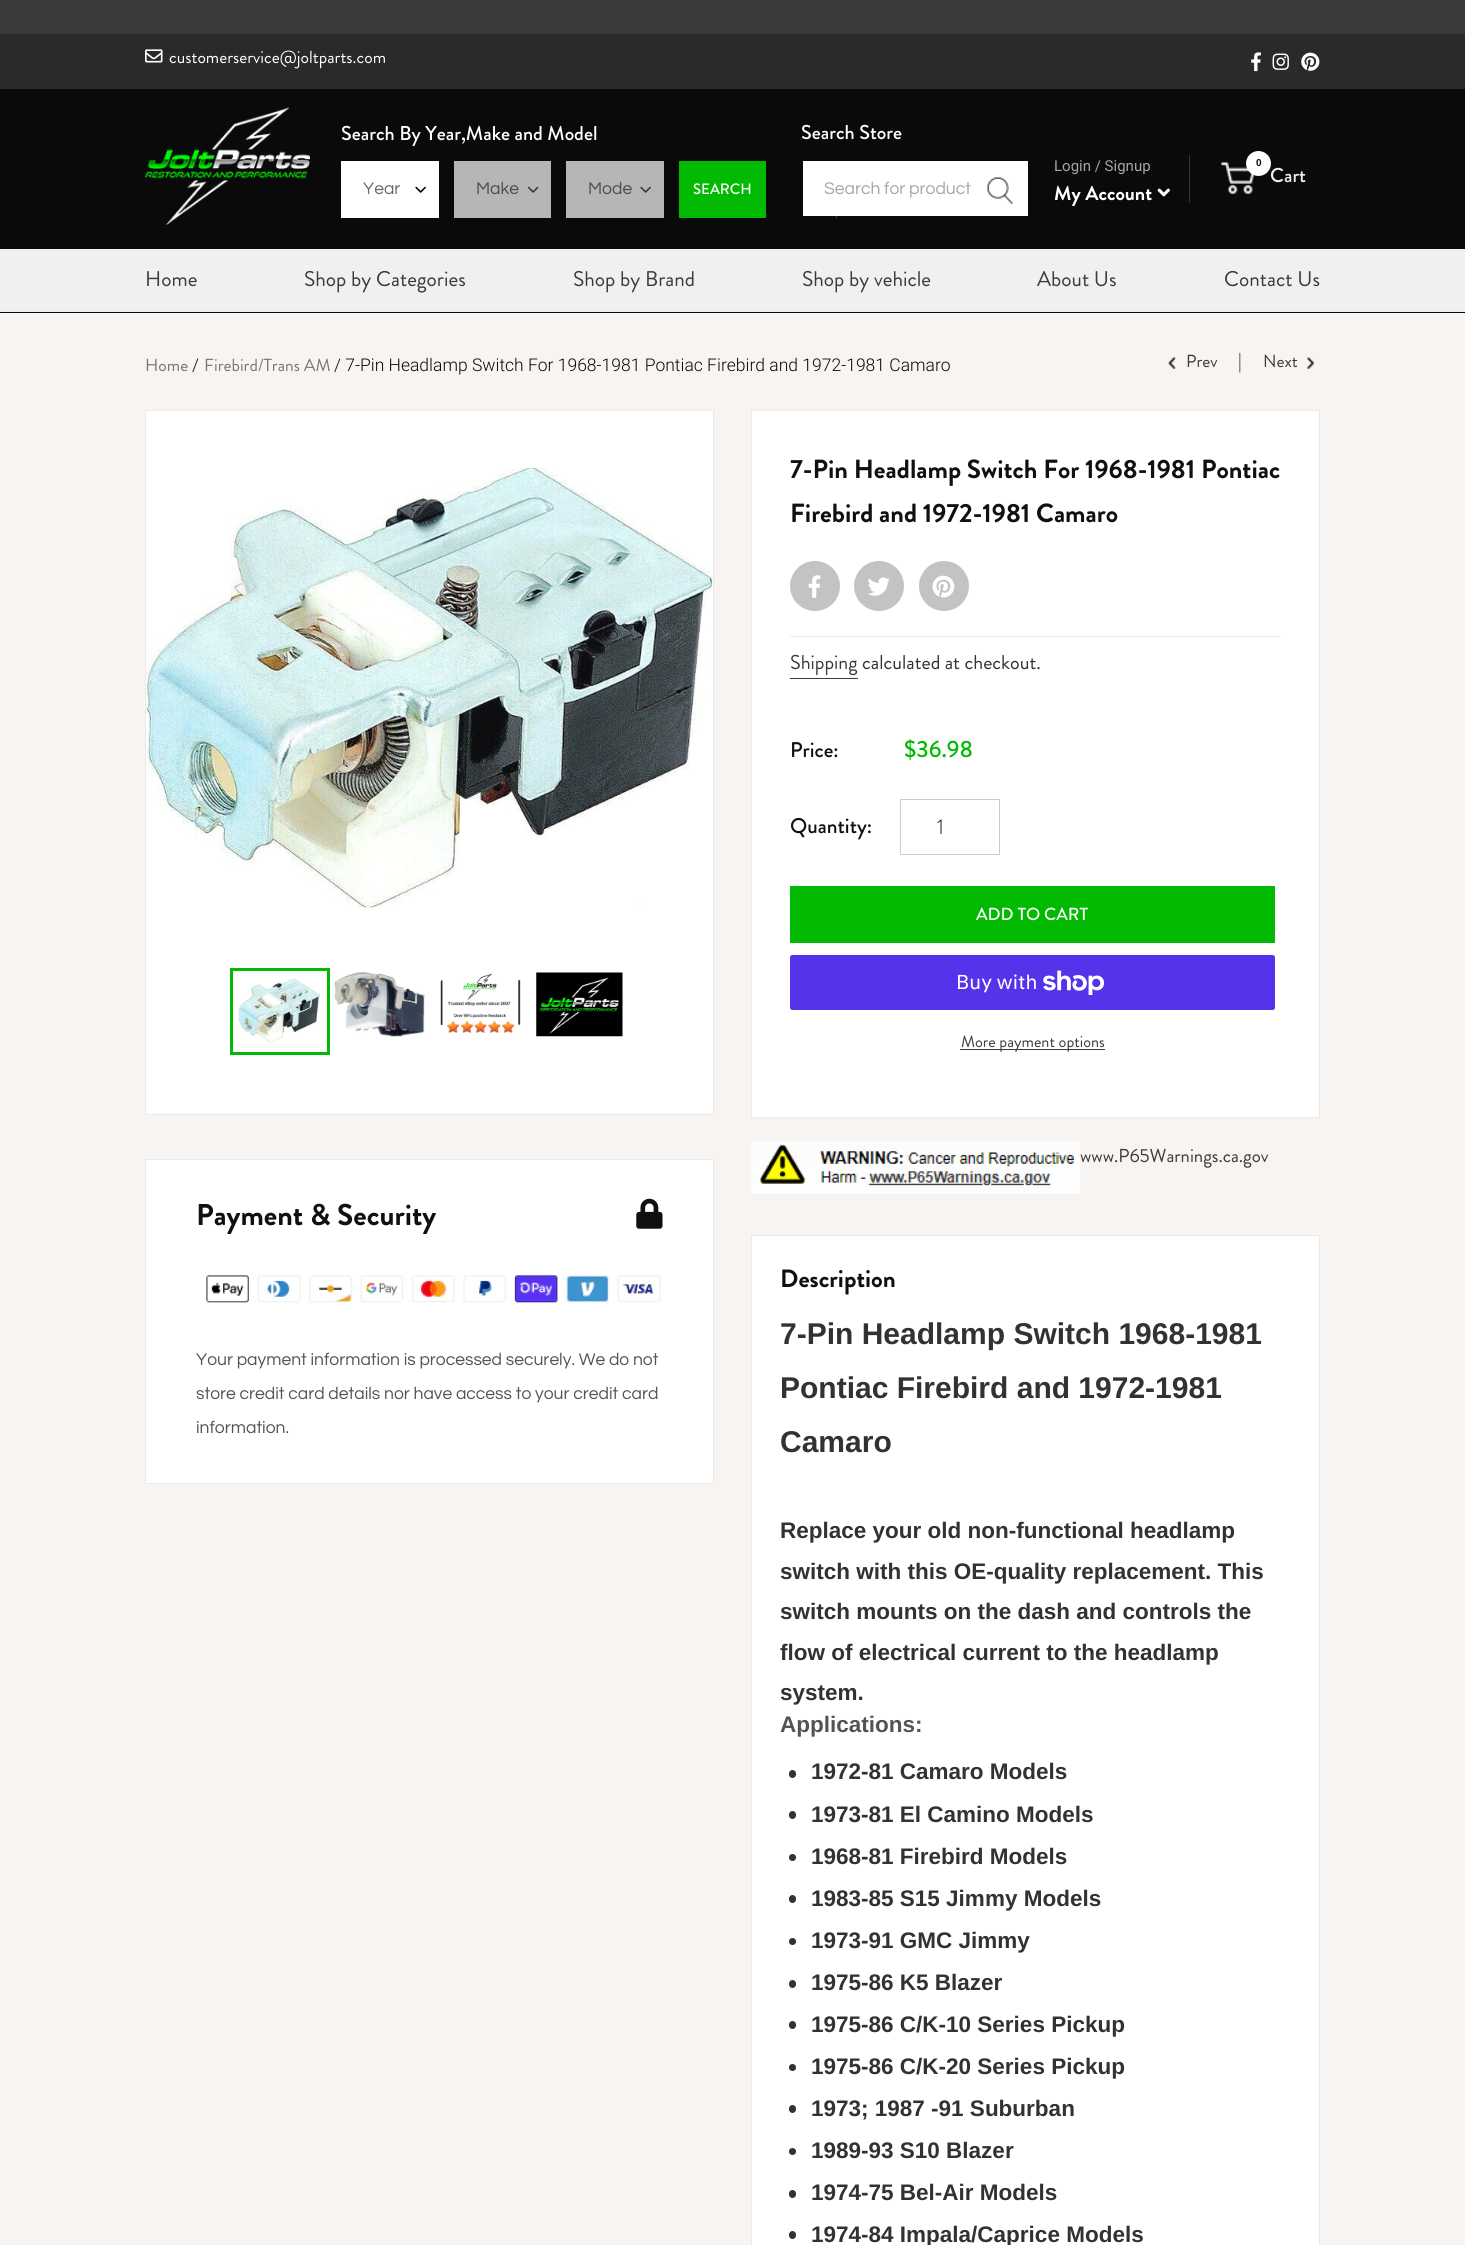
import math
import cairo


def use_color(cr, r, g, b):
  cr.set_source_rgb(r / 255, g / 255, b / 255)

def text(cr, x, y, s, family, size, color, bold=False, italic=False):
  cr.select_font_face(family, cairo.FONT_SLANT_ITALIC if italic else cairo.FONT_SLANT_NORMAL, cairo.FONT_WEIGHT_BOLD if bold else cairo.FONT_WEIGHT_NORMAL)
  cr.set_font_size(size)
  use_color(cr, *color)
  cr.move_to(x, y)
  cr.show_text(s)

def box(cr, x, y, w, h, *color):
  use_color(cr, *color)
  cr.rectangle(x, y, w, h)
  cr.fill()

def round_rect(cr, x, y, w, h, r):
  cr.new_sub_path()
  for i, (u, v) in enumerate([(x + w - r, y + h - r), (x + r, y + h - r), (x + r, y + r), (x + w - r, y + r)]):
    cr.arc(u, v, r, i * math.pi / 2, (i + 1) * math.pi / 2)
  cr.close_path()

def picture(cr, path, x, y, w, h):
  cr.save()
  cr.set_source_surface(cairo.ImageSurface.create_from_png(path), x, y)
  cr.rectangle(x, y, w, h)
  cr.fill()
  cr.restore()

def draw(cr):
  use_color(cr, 42, 42, 42)
  cr.paint()
  box(cr, 0, 0, 1465, 34, 58, 58, 58)
  picture(cr, "img_01.png", 145, 49, 18, 14)
  picture(cr, "img_02.png", 1251, 52, 10, 20)
  picture(cr, "img_03.png", 1272, 53, 17, 17)
  picture(cr, "img_04.png", 1301, 52, 19, 19)
  box(cr, 0, 89, 1465, 224, 10, 10, 10)
  box(cr, 0, 311, 1465, 1, 235, 235, 235)
  picture(cr, "img_05.png", 145, 107, 165, 118)
  box(cr, 341, 161, 98, 57, 255, 255, 255)
  picture(cr, "img_06.png", 415, 186, 11, 7)
  box(cr, 454, 161, 97, 57, 182, 182, 182)
  picture(cr, "img_07.png", 528, 186, 11, 7)
  box(cr, 566, 161, 98, 57, 182, 182, 182)
  picture(cr, "img_08.png", 640, 186, 11, 7)
  box(cr, 679, 161, 87, 57, 1, 186, 1)
  box(cr, 836, 216, 1, 3, 54, 54, 54)
  box(cr, 803, 161, 225, 55, 255, 255, 255)
  picture(cr, "img_09.png", 987, 177, 26, 27)
  picture(cr, "img_10.png", 1157, 188, 13, 9)
  box(cr, 1189, 155, 1, 48, 54, 54, 54)
  picture(cr, "img_11.png", 1221, 162, 33, 32)
  use_color(cr, 255, 255, 255)
  cr.arc(1258.5, 163.5, 12.5, 0, 2 * math.pi)
  cr.fill()
  box(cr, 0, 249, 1465, 62, 240, 240, 240)
  box(cr, 0, 313, 1465, 1932, 247, 244, 242)
  use_color(cr, 255, 255, 255)
  cr.rectangle(145.5, 410.5, 568, 704)
  cr.fill_preserve()
  use_color(cr, 234, 234, 234)
  cr.set_line_width(1)
  cr.stroke()
  picture(cr, "img_12.png", 146, 467, 567, 441)
  cr.rectangle(231.5, 969.5, 97, 84)
  use_color(cr, 1, 186, 1)
  cr.set_line_width(3)
  cr.stroke()
  picture(cr, "img_13.png", 238, 978, 82, 65)
  picture(cr, "img_14.png", 335, 972, 90, 65)
  picture(cr, "img_15.png", 440, 973, 81, 60)
  picture(cr, "img_16.png", 536, 972, 87, 65)
  use_color(cr, 255, 255, 255)
  cr.rectangle(145.5, 1159.5, 568, 324)
  cr.fill_preserve()
  use_color(cr, 234, 234, 234)
  cr.set_line_width(1)
  cr.stroke()
  picture(cr, "img_17.png", 636, 1198, 27, 31)
  picture(cr, "img_18.png", 206, 1274, 455, 30)
  picture(cr, "img_19.png", 1168, 357, 8, 12)
  picture(cr, "img_20.png", 1307, 357, 7, 12)
  use_color(cr, 255, 255, 255)
  cr.rectangle(751.5, 410.5, 568, 707)
  cr.fill_preserve()
  use_color(cr, 234, 234, 234)
  cr.stroke()
  box(cr, 790, 636, 491, 1, 235, 235, 235)
  use_color(cr, 195, 195, 195)
  cr.arc(815, 586, 25, 0, 2 * math.pi)
  cr.fill()
  picture(cr, "img_21.png", 808, 575, 13, 23)
  cr.arc(879, 586, 25, 0, 2 * math.pi)
  cr.fill()
  picture(cr, "img_22.png", 868, 577, 22, 19)
  cr.arc(944, 586, 25, 0, 2 * math.pi)
  cr.fill()
  picture(cr, "img_23.png", 932, 575, 23, 23)
  box(cr, 790, 678, 68, 1, 58, 58, 58)
  cr.rectangle(900.5, 799.5, 99, 55)
  use_color(cr, 204, 204, 204)
  cr.stroke()
  box(cr, 790, 886, 485, 57, 1, 186, 1)
  use_color(cr, 84, 51, 235)
  round_rect(cr, 790, 955, 485, 55, 2.5)
  cr.fill()
  picture(cr, "img_24.png", 1043, 970, 62, 25)
  box(cr, 960, 1049, 145, 1, 58, 58, 58)
  picture(cr, "img_25.png", 751, 1141, 329, 53)
  use_color(cr, 255, 255, 255)
  cr.rectangle(751.5, 1235.5, 568, 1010)
  cr.fill_preserve()
  use_color(cr, 234, 234, 234)
  cr.stroke()
  use_color(cr, 51, 50, 50)
  round_rect(cr, 789, 1770, 7, 8, 3.5)
  cr.fill()
  round_rect(cr, 789, 1811, 7, 8, 3.5)
  cr.fill()
  cr.arc(792.5, 1857.5, 3.5, 0, 2 * math.pi)
  cr.fill()
  round_rect(cr, 789, 1895, 7, 8, 3.5)
  cr.fill()
  cr.arc(792.5, 1941.5, 3.5, 0, 2 * math.pi)
  cr.fill()
  round_rect(cr, 789, 1980, 7, 8, 3.5)
  cr.fill()
  round_rect(cr, 789, 2021, 7, 8, 3.5)
  cr.fill()
  cr.arc(792.5, 2067.5, 3.5, 0, 2 * math.pi)
  cr.fill()
  round_rect(cr, 789, 2105, 7, 8, 3.5)
  cr.fill()
  cr.arc(792.5, 2151.5, 3.5, 0, 2 * math.pi)
  cr.fill()
  round_rect(cr, 789, 2190, 7, 8, 3.5)
  cr.fill()
  round_rect(cr, 789, 2231, 7, 8, 3.5)
  cr.fill()
  text(cr, 169, 63, "customerservice@joltparts.com", "Brandon Grotesque", 17.5, (255, 255, 255))
  text(cr, 341, 140, "Search By Year,Make and Model", "Brandon Grotesque Medium", 20, (255, 255, 255))
  text(cr, 363, 194, "Year", "Questrial", 17.5, (105, 105, 105))
  text(cr, 476, 194, "Make", "Questrial", 17.5, (77, 77, 77))
  text(cr, 588, 194, "Mode", "Questrial", 17.5, (77, 77, 77))
  text(cr, 693, 194, "SEARCH", "Brandon Grotesque Medium", 15, (255, 255, 255))
  text(cr, 801, 139, "Search Store", "Brandon Grotesque Medium", 20, (255, 255, 255))
  text(cr, 824, 194, "Search for product", "Questrial", 17.5, (165, 165, 165))
  text(cr, 1054, 171, "Login / Signup", "Roboto", 15, (165, 165, 165))
  text(cr, 1054, 200, "My Account", "Brandon Grotesque", 20, (255, 255, 255), bold=True)
  text(cr, 1256, 166, "0", "Liberation Sans", 10, (10, 10, 10), bold=True)
  text(cr, 1270, 182, "Cart", "Brandon Grotesque Medium", 20, (240, 240, 240))
  text(cr, 145, 286, "Home", "Brandon Grotesque", 21.25, (58, 58, 58))
  text(cr, 304, 286, "Shop by Categories", "Brandon Grotesque", 21.25, (58, 58, 58))
  text(cr, 573, 286, "Shop by Brand", "Brandon Grotesque", 21.25, (58, 58, 58))
  text(cr, 802, 286, "Shop by vehicle", "Brandon Grotesque", 21.25, (58, 58, 58))
  text(cr, 1037, 286, "About Us", "Brandon Grotesque", 21.25, (58, 58, 58))
  text(cr, 1224, 286, "Contact Us", "Brandon Grotesque", 21.25, (58, 58, 58))
  text(cr, 196, 1225, "Payment & Security", "Brandon Grotesque", 30, (16, 16, 17), bold=True)
  text(cr, 196, 1365, "Your payment information is processed securely. We do not", "Questrial", 17.5, (84, 84, 84))
  text(cr, 196, 1399, "store credit card details nor have access to your credit card", "Questrial", 17.5, (84, 84, 84))
  text(cr, 196, 1433, "information.", "Questrial", 17.5, (84, 84, 84))
  text(cr, 1186, 367, "Prev", "Brandon Grotesque", 17.5, (58, 58, 58))
  text(cr, 1238, 367, "|", "Brandon Grotesque", 18.75, (58, 58, 58))
  text(cr, 1263, 367, "Next", "Brandon Grotesque", 17.5, (58, 58, 58))
  text(cr, 790, 478, "7-Pin Headlamp Switch For 1968-1981 Pontiac", "Brandon Grotesque", 26.25, (16, 16, 17), bold=True)
  text(cr, 790, 522, "Firebird and 1972-1981 Camaro", "Brandon Grotesque", 26.25, (16, 16, 17), bold=True)
  text(cr, 790, 669, "Shipping", "Brandon Grotesque", 20, (58, 58, 58))
  text(cr, 862, 669, "calculated at checkout.", "Brandon Grotesque", 20, (51, 50, 50))
  text(cr, 790, 757, "Price:", "Brandon Grotesque Medium", 21.25, (16, 16, 17))
  text(cr, 904, 757, "$36.98", "Brandon Grotesque Medium", 23.5, (1, 186, 1))
  text(cr, 790, 833, "Quantity:", "Brandon Grotesque Medium", 21.25, (16, 16, 17))
  text(cr, 937, 834, "1", "Brandon Grotesque Light", 21.25, (16, 16, 17))
  text(cr, 976, 920, "ADD TO CART", "Brandon Grotesque Medium", 17.5, (255, 255, 255))
  text(cr, 956, 989, "Buy with", "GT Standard", 20, (255, 255, 255))
  text(cr, 961, 1047, "More payment options", "Brandon Grotesque", 16.25, (58, 58, 58))
  text(cr, 1080, 1162, "www.P65Warnings.ca.gov", "Brandon Grotesque", 18.75, (58, 58, 58))
  text(cr, 780, 1287, "Description", "Brandon Grotesque", 25, (16, 16, 17), bold=True)
  text(cr, 780, 1344, "7-Pin Headlamp Switch 1968-1981", "Liberation Sans", 30, (51, 50, 50), bold=True)
  text(cr, 780, 1398, "Pontiac Firebird and 1972-1981", "Liberation Sans", 30, (51, 50, 50), bold=True)
  text(cr, 780, 1452, "Camaro", "Liberation Sans", 30, (51, 50, 50), bold=True)
  text(cr, 780, 1538, "Replace your old non-functional headlamp", "Liberation Sans", 22.5, (51, 50, 50), bold=True)
  text(cr, 780, 1579, "switch with this OE-quality replacement. This", "Liberation Sans", 22.5, (51, 50, 50), bold=True)
  text(cr, 780, 1619, "switch mounts on the dash and controls the", "Liberation Sans", 22.5, (51, 50, 50), bold=True)
  text(cr, 780, 1660, "flow of electrical current to the headlamp", "Liberation Sans", 22.5, (51, 50, 50), bold=True)
  text(cr, 780, 1700, "system.", "Liberation Sans", 22.5, (51, 50, 50), bold=True)
  text(cr, 780, 1732, "Applications:", "Liberation Sans", 22.5, (84, 84, 84), bold=True)
  text(cr, 811, 1779, "1972-81 Camaro Models", "Liberation Sans", 22.5, (51, 50, 50), bold=True)
  text(cr, 811, 1822, "1973-81 El Camino Models", "Liberation Sans", 22.5, (51, 50, 50), bold=True)
  text(cr, 811, 1864, "1968-81 Firebird Models", "Liberation Sans", 22.5, (51, 50, 50), bold=True)
  text(cr, 811, 1906, "1983-85 S15 Jimmy Models", "Liberation Sans", 22.5, (51, 50, 50), bold=True)
  text(cr, 811, 1948, "1973-91 GMC Jimmy", "Liberation Sans", 22.5, (51, 50, 50), bold=True)
  text(cr, 811, 1990, "1975-86 K5 Blazer", "Liberation Sans", 22.5, (51, 50, 50), bold=True)
  text(cr, 811, 2032, "1975-86 C/K-10 Series Pickup", "Liberation Sans", 22.5, (51, 50, 50), bold=True)
  text(cr, 811, 2074, "1975-86 C/K-20 Series Pickup", "Liberation Sans", 22.5, (51, 50, 50), bold=True)
  text(cr, 811, 2116, "1973; 1987 -91 Suburban", "Liberation Sans", 22.5, (51, 50, 50), bold=True)
  text(cr, 811, 2158, "1989-93 S10 Blazer", "Liberation Sans", 22.5, (51, 50, 50), bold=True)
  text(cr, 811, 2200, "1974-75 Bel-Air Models", "Liberation Sans", 22.5, (51, 50, 50), bold=True)
  text(cr, 811, 2242, "1974-84 Impala/Caprice Models", "Liberation Sans", 22.5, (51, 50, 50), bold=True)
  text(cr, 145, 371, "Home", "Brandon Grotesque", 17.5, (119, 119, 119))
  text(cr, 192, 371, "/", "Roboto Light", 17.5, (10, 10, 10))
  text(cr, 204, 371, "Firebird/Trans AM", "Brandon Grotesque", 17.5, (119, 119, 119))
  text(cr, 334, 371, "/ 7-Pin Headlamp Switch For 1968-1981 Pontiac Firebird and 1972-1981 Camaro", "Roboto Light", 17.5, (10, 10, 10))


surface = cairo.ImageSurface(cairo.FORMAT_RGB24, 1465, 2245)
cr = cairo.Context(surface)
options = cairo.FontOptions()
options.set_hint_metrics(cairo.HINT_METRICS_OFF)
options.set_hint_style(cairo.HINT_STYLE_NONE)
cr.set_font_options(options)
cr.set_miter_limit(4)
draw(cr)
surface.write_to_png("out.png")
